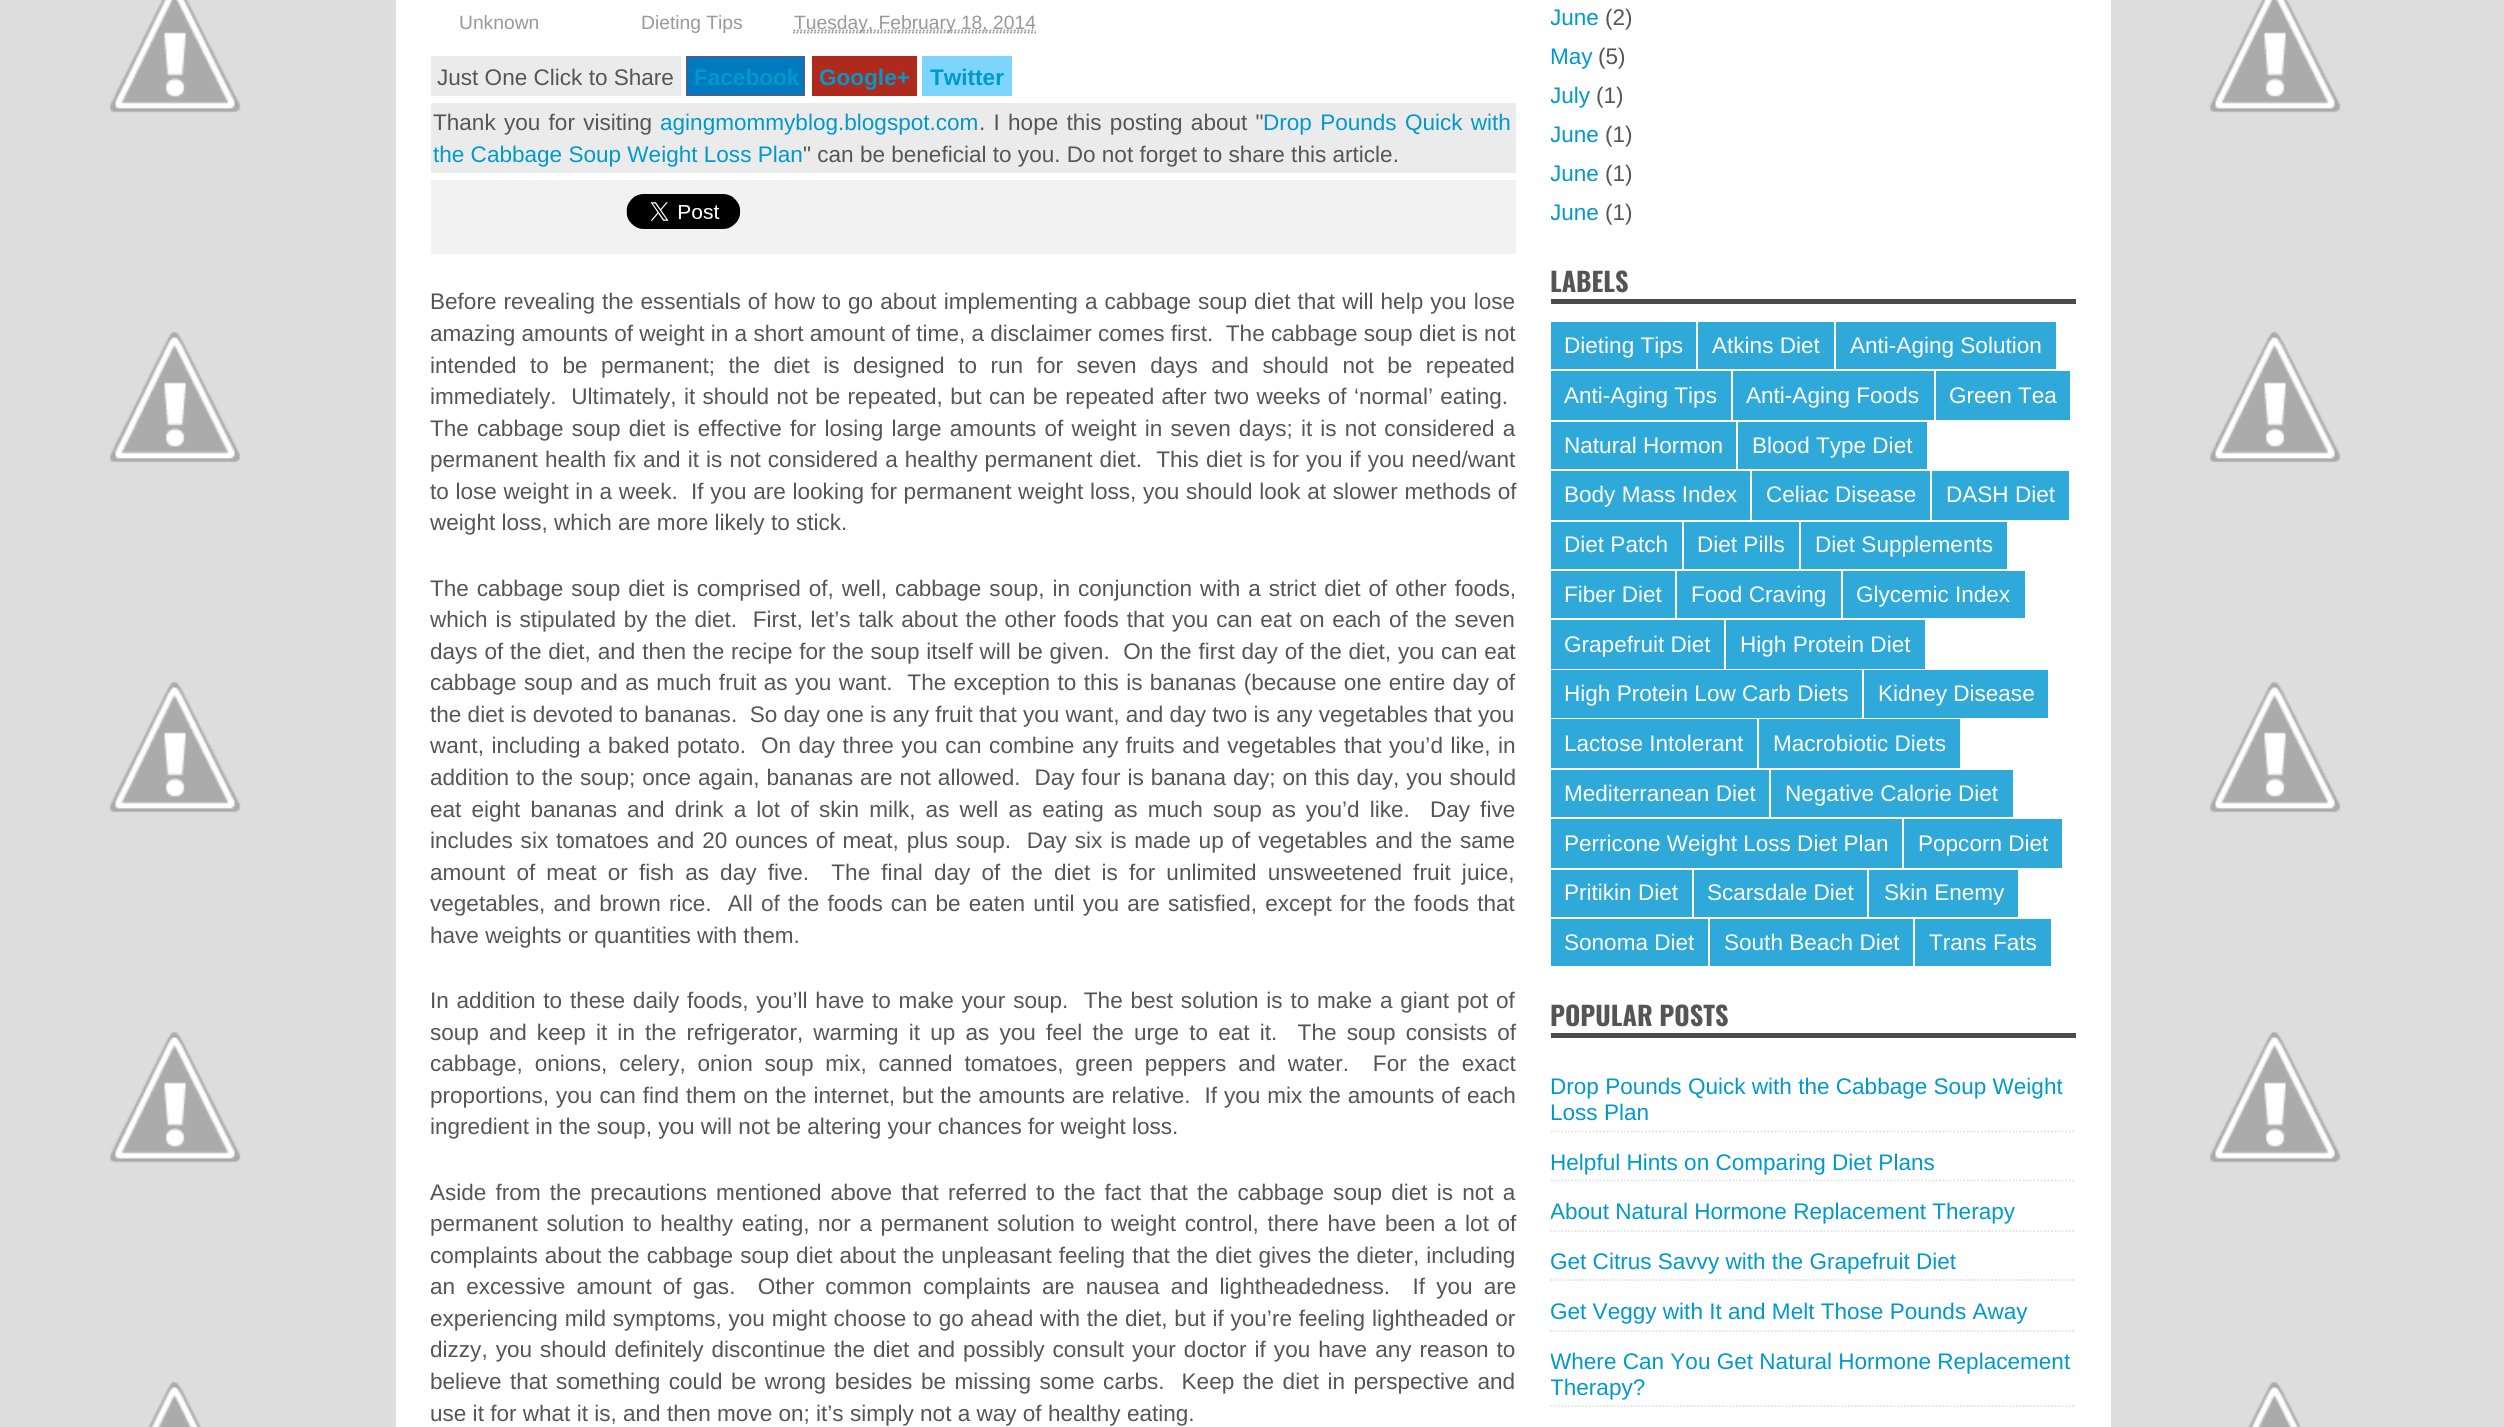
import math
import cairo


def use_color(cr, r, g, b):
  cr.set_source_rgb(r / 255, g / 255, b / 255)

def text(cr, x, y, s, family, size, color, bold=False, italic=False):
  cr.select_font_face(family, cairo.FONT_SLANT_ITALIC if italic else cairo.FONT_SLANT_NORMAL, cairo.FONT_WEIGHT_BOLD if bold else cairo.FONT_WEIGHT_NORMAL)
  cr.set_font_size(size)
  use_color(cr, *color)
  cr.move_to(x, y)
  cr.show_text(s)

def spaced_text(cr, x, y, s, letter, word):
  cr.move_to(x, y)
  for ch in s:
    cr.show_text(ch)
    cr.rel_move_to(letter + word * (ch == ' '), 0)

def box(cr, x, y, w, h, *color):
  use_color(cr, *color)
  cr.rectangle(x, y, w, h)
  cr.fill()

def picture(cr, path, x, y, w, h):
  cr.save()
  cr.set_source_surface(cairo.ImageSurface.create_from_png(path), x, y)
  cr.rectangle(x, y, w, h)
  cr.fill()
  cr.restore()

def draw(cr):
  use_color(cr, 221, 221, 221)
  cr.paint()
  picture(cr, "img_01.png", 110, 0, 2231, 1427)
  box(cr, 396, 0, 1715, 1427, 255, 255, 255)
  cr.new_path()
  cr.move_to(793, 32.5)
  cr.line_to(1036, 32.5)
  use_color(cr, 153, 153, 153)
  cr.set_line_width(1.8)
  cr.set_dash([1.75, 1.75])
  cr.stroke()
  cr.new_path()
  cr.move_to(793.5, 30.5)
  cr.line_to(1035.5, 30.5)
  cr.stroke()
  box(cr, 431, 56, 250, 40, 235, 235, 235)
  use_color(cr, 0, 122, 190)
  cr.rectangle(687, 57, 117, 38)
  cr.fill_preserve()
  use_color(cr, 69, 97, 157)
  cr.set_line_width(2)
  cr.set_dash([])
  cr.stroke()
  box(cr, 812, 56, 105, 40, 175, 41, 29)
  box(cr, 922, 56, 90, 40, 124, 213, 253)
  box(cr, 431, 103, 1085, 70, 235, 235, 235)
  box(cr, 431, 180, 1085, 74, 242, 242, 242)
  picture(cr, "img_02.png", 626, 194, 115, 35)
  box(cr, 1551, 299, 525, 5, 75, 75, 75)
  box(cr, 1551, 322, 145, 47, 46, 169, 218)
  box(cr, 1698, 322, 136, 47, 46, 169, 218)
  box(cr, 1836, 322, 220, 47, 46, 169, 218)
  box(cr, 1551, 371, 180, 49, 46, 169, 218)
  box(cr, 1733, 371, 201, 49, 46, 169, 218)
  box(cr, 1936, 371, 134, 49, 46, 169, 218)
  box(cr, 1551, 422, 185, 47, 46, 169, 218)
  box(cr, 1738, 422, 189, 47, 46, 169, 218)
  box(cr, 1551, 471, 199, 49, 46, 169, 218)
  box(cr, 1752, 471, 178, 49, 46, 169, 218)
  box(cr, 1932, 471, 137, 49, 46, 169, 218)
  box(cr, 1551, 522, 131, 47, 46, 169, 218)
  box(cr, 1684, 522, 115, 47, 46, 169, 218)
  box(cr, 1801, 522, 206, 47, 46, 169, 218)
  box(cr, 1551, 571, 124, 47, 46, 169, 218)
  box(cr, 1677, 571, 164, 47, 46, 169, 218)
  box(cr, 1843, 571, 182, 47, 46, 169, 218)
  box(cr, 1551, 620, 173, 49, 46, 169, 218)
  box(cr, 1726, 620, 199, 49, 46, 169, 218)
  box(cr, 1551, 670, 311, 48, 46, 169, 218)
  box(cr, 1864, 670, 184, 48, 46, 169, 218)
  box(cr, 1551, 719, 206, 49, 46, 169, 218)
  box(cr, 1759, 719, 201, 49, 46, 169, 218)
  box(cr, 1551, 770, 218, 47, 46, 169, 218)
  box(cr, 1771, 770, 242, 47, 46, 169, 218)
  box(cr, 1551, 819, 351, 49, 46, 169, 218)
  box(cr, 1904, 819, 158, 49, 46, 169, 218)
  box(cr, 1551, 870, 141, 47, 46, 169, 218)
  box(cr, 1694, 870, 173, 47, 46, 169, 218)
  box(cr, 1869, 870, 149, 47, 46, 169, 218)
  box(cr, 1551, 919, 157, 47, 46, 169, 218)
  box(cr, 1710, 919, 203, 47, 46, 169, 218)
  box(cr, 1915, 919, 136, 47, 46, 169, 218)
  box(cr, 1551, 1033, 525, 5, 75, 75, 75)
  cr.save()
  cr.rectangle(1551, 1055, 525, 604)
  cr.clip()
  cr.new_path()
  cr.move_to(1550.5, 1131.5)
  cr.line_to(2075.5, 1131.5)
  use_color(cr, 226, 226, 226)
  cr.set_line_width(1.8)
  cr.set_dash([1.75, 1.75])
  cr.stroke()
  cr.new_path()
  cr.move_to(1550.5, 1180.5)
  cr.line_to(2075.5, 1180.5)
  cr.stroke()
  cr.restore()
  cr.new_path()
  cr.move_to(1550.5, 1231)
  cr.line_to(2075.5, 1231)
  use_color(cr, 226, 226, 226)
  cr.set_line_width(1.8)
  cr.set_dash([1.75, 1.75])
  cr.stroke()
  cr.new_path()
  cr.move_to(1550.5, 1280)
  cr.line_to(2075.5, 1280)
  cr.stroke()
  cr.new_path()
  cr.move_to(1550.5, 1331)
  cr.line_to(2075.5, 1331)
  cr.stroke()
  cr.new_path()
  cr.move_to(1550.5, 1406)
  cr.line_to(2075.5, 1406)
  cr.stroke()
  text(cr, 459, 29, "Unknown", "Liberation Sans", 19.25, (153, 153, 153))
  text(cr, 641, 29, "Dieting Tips", "Liberation Sans", 19.25, (153, 153, 153))
  text(cr, 794, 29, "Tuesday, February 18, 2014", "Liberation Sans", 19.25, (153, 153, 153))
  text(cr, 437, 85, "Just One Click to Share", "Liberation Sans", 22.55, (85, 85, 85))
  text(cr, 694, 85, "Facebook", "Liberation Sans", 22.55, (0, 153, 204), bold=True)
  text(cr, 819, 85, "Google+", "Liberation Sans", 22.55, (0, 153, 204), bold=True)
  text(cr, 930, 85, "Twitter", "Liberation Sans", 22.55, (0, 153, 204), bold=True)
  cr.select_font_face("Liberation Sans")
  use_color(cr, 85, 85, 85)
  spaced_text(cr, 433, 130, "Thank you for visiting", 0, 2)
  text(cr, 660, 130, "agingmommyblog.blogspot.com", "Liberation Sans", 22.55, (0, 153, 204))
  use_color(cr, 85, 85, 85)
  spaced_text(cr, 979, 130, ". I hope this posting about \"", 0, 2)
  use_color(cr, 0, 153, 204)
  spaced_text(cr, 1263, 130, "Drop Pounds Quick with", 0, 2)
  text(cr, 433, 162, "the Cabbage Soup Weight Loss Plan", "Liberation Sans", 22.55, (0, 153, 204))
  text(cr, 803, 162, "\" can be beneficial to you. Do not forget to share this article.", "Liberation Sans", 22.55, (85, 85, 85))
  spaced_text(cr, 430, 309, "Before revealing the essentials of how to go about implementing a cabbage soup diet that will help you lose", 0, 0.8)
  text(cr, 430, 341, "amazing amounts of weight in a short amount of time, a disclaimer comes first.  The cabbage soup diet is not", "Liberation Sans", 22.55, (85, 85, 85))
  spaced_text(cr, 430, 373, "intended to be permanent; the diet is designed to run for seven days and should not be repeated", 0, 7.25)
  spaced_text(cr, 430, 404, "immediately.  Ultimately, it should not be repeated, but can be repeated after two weeks of ‘normal’ eating.", 0, 1.1)
  spaced_text(cr, 430, 436, "The cabbage soup diet is effective for losing large amounts of weight in seven days; it is not considered a", 0, 1.9)
  spaced_text(cr, 430, 467, "permanent health fix and it is not considered a healthy permanent diet.  This diet is for you if you need/want", 0, 0.8)
  spaced_text(cr, 430, 499, "to lose weight in a week.  If you are looking for permanent weight loss, you should look at slower methods of", 0, 0.4)
  text(cr, 430, 530, "weight loss, which are more likely to stick.", "Liberation Sans", 22.55, (85, 85, 85))
  spaced_text(cr, 430, 596, "The cabbage soup diet is comprised of, well, cabbage soup, in conjunction with a strict diet of other foods,", 0, 1.7)
  spaced_text(cr, 430, 627, "which is stipulated by the diet.  First, let’s talk about the other foods that you can eat on each of the seven", 0, 1.5)
  spaced_text(cr, 430, 659, "days of the diet, and then the recipe for the soup itself will be given.  On the first day of the diet, you can eat", 0, 0.55)
  spaced_text(cr, 430, 690, "cabbage soup and as much fruit as you want.  The exception to this is bananas (because one entire day of", 0, 1.1)
  text(cr, 430, 722, "the diet is devoted to bananas.  So day one is any fruit that you want, and day two is any vegetables that you", "Liberation Sans", 22.55, (85, 85, 85))
  spaced_text(cr, 430, 753, "want, including a baked potato.  On day three you can combine any fruits and vegetables that you’d like, in", 0, 1.25)
  spaced_text(cr, 430, 785, "addition to the soup; once again, bananas are not allowed.  Day four is banana day; on this day, you should", 0, 0.7)
  spaced_text(cr, 430, 817, "eat eight bananas and drink a lot of skin milk, as well as eating as much soup as you’d like.  Day five", 0, 3.8)
  spaced_text(cr, 430, 848, "includes six tomatoes and 20 ounces of meat, plus soup.  Day six is made up of vegetables and the same", 0, 1.6)
  spaced_text(cr, 430, 880, "amount of meat or fish as day five.  The final day of the diet is for unlimited unsweetened fruit juice,", 0, 4.9)
  spaced_text(cr, 430, 911, "vegetables, and brown rice.  All of the foods can be eaten until you are satisfied, except for the foods that", 0, 1.9)
  text(cr, 430, 943, "have weights or quantities with them.", "Liberation Sans", 22.55, (85, 85, 85))
  spaced_text(cr, 430, 1008, "In addition to these daily foods, you’ll have to make your soup.  The best solution is to make a giant pot of", 0, 1.5)
  spaced_text(cr, 430, 1040, "soup and keep it in the refrigerator, warming it up as you feel the urge to eat it.  The soup consists of", 0, 3.9)
  spaced_text(cr, 430, 1071, "cabbage, onions, celery, onion soup mix, canned tomatoes, green peppers and water.  For the exact", 0, 5.6)
  spaced_text(cr, 430, 1103, "proportions, you can find them on the internet, but the amounts are relative.  If you mix the amounts of each", 0, 0.7)
  text(cr, 430, 1134, "ingredient in the soup, you will not be altering your chances for weight loss.", "Liberation Sans", 22.55, (85, 85, 85))
  spaced_text(cr, 430, 1200, "Aside from the precautions mentioned above that referred to the fact that the cabbage soup diet is not a", 0, 2.9)
  spaced_text(cr, 430, 1231, "permanent solution to healthy eating, nor a permanent solution to weight control, there have been a lot of", 0, 2.4)
  spaced_text(cr, 430, 1263, "complaints about the cabbage soup diet about the unpleasant feeling that the diet gives the dieter, including", 0, 0.75)
  spaced_text(cr, 430, 1294, "an excessive amount of gas.  Other common complaints are nausea and lightheadedness.  If you are", 0, 4.9)
  spaced_text(cr, 430, 1326, "experiencing mild symptoms, you might choose to go ahead with the diet, but if you’re feeling lightheaded or", 0, 0.5)
  spaced_text(cr, 430, 1357, "dizzy, you should definitely discontinue the diet and possibly consult your doctor if you have any reason to", 0, 1.75)
  spaced_text(cr, 430, 1389, "believe that something could be wrong besides be missing some carbs.  Keep the diet in perspective and", 0, 2.25)
  text(cr, 430, 1421, "use it for what it is, and then move on; it’s simply not a way of healthy eating.", "Liberation Sans", 22.55, (85, 85, 85))
  cr.save()
  cr.rectangle(1551, 0, 525, 252)
  cr.clip()
  text(cr, 1550, 25, "June", "Liberation Sans", 22.55, (0, 153, 204))
  cr.restore()
  text(cr, 1605, 25, "(2)", "Liberation Sans", 22.55, (85, 85, 85))
  text(cr, 1550, 64, "May", "Liberation Sans", 22.55, (0, 153, 204))
  text(cr, 1598, 64, "(5)", "Liberation Sans", 22.55, (85, 85, 85))
  cr.save()
  cr.rectangle(1551, 0, 525, 252)
  cr.clip()
  text(cr, 1550, 103, "July", "Liberation Sans", 22.55, (0, 153, 204))
  cr.restore()
  text(cr, 1596, 103, "(1)", "Liberation Sans", 22.55, (85, 85, 85))
  cr.save()
  cr.rectangle(1551, 0, 525, 252)
  cr.clip()
  text(cr, 1550, 142, "June", "Liberation Sans", 22.55, (0, 153, 204))
  cr.restore()
  text(cr, 1605, 142, "(1)", "Liberation Sans", 22.55, (85, 85, 85))
  cr.save()
  cr.rectangle(1551, 0, 525, 252)
  cr.clip()
  text(cr, 1550, 181, "June", "Liberation Sans", 22.55, (0, 153, 204))
  cr.restore()
  text(cr, 1605, 181, "(1)", "Liberation Sans", 22.55, (85, 85, 85))
  cr.save()
  cr.rectangle(1551, 0, 525, 252)
  cr.clip()
  text(cr, 1550, 220, "June", "Liberation Sans", 22.55, (0, 153, 204))
  cr.restore()
  text(cr, 1605, 220, "(1)", "Liberation Sans", 22.55, (85, 85, 85))
  text(cr, 1550, 292, "LABELS", "Oswald", 26.25, (85, 85, 85), bold=True)
  text(cr, 1564, 353, "Dieting Tips", "Liberation Sans", 22.55, (255, 255, 255))
  text(cr, 1712, 353, "Atkins Diet", "Liberation Sans", 22.55, (255, 255, 255))
  text(cr, 1850, 353, "Anti-Aging Solution", "Liberation Sans", 22.55, (255, 255, 255))
  text(cr, 1564, 403, "Anti-Aging Tips", "Liberation Sans", 22.55, (255, 255, 255))
  text(cr, 1746, 403, "Anti-Aging Foods", "Liberation Sans", 22.55, (255, 255, 255))
  text(cr, 1949, 403, "Green Tea", "Liberation Sans", 22.55, (255, 255, 255))
  text(cr, 1564, 453, "Natural Hormon", "Liberation Sans", 22.55, (255, 255, 255))
  text(cr, 1752, 453, "Blood Type Diet", "Liberation Sans", 22.55, (255, 255, 255))
  text(cr, 1564, 502, "Body Mass Index", "Liberation Sans", 22.55, (255, 255, 255))
  text(cr, 1766, 502, "Celiac Disease", "Liberation Sans", 22.55, (255, 255, 255))
  text(cr, 1946, 502, "DASH Diet", "Liberation Sans", 22.55, (255, 255, 255))
  text(cr, 1564, 552, "Diet Patch", "Liberation Sans", 22.55, (255, 255, 255))
  text(cr, 1697, 552, "Diet Pills", "Liberation Sans", 22.55, (255, 255, 255))
  text(cr, 1815, 552, "Diet Supplements", "Liberation Sans", 22.55, (255, 255, 255))
  text(cr, 1564, 602, "Fiber Diet", "Liberation Sans", 22.55, (255, 255, 255))
  text(cr, 1691, 602, "Food Craving", "Liberation Sans", 22.55, (255, 255, 255))
  text(cr, 1856, 602, "Glycemic Index", "Liberation Sans", 22.55, (255, 255, 255))
  text(cr, 1564, 652, "Grapefruit Diet", "Liberation Sans", 22.55, (255, 255, 255))
  text(cr, 1740, 652, "High Protein Diet", "Liberation Sans", 22.55, (255, 255, 255))
  text(cr, 1564, 701, "High Protein Low Carb Diets", "Liberation Sans", 22.55, (255, 255, 255))
  text(cr, 1878, 701, "Kidney Disease", "Liberation Sans", 22.55, (255, 255, 255))
  text(cr, 1564, 751, "Lactose Intolerant", "Liberation Sans", 22.55, (255, 255, 255))
  text(cr, 1773, 751, "Macrobiotic Diets", "Liberation Sans", 22.55, (255, 255, 255))
  text(cr, 1564, 801, "Mediterranean Diet", "Liberation Sans", 22.55, (255, 255, 255))
  text(cr, 1785, 801, "Negative Calorie Diet", "Liberation Sans", 22.55, (255, 255, 255))
  text(cr, 1564, 851, "Perricone Weight Loss Diet Plan", "Liberation Sans", 22.55, (255, 255, 255))
  text(cr, 1918, 851, "Popcorn Diet", "Liberation Sans", 22.55, (255, 255, 255))
  text(cr, 1564, 900, "Pritikin Diet", "Liberation Sans", 22.55, (255, 255, 255))
  text(cr, 1707, 900, "Scarsdale Diet", "Liberation Sans", 22.55, (255, 255, 255))
  text(cr, 1884, 900, "Skin Enemy", "Liberation Sans", 22.55, (255, 255, 255))
  text(cr, 1564, 950, "Sonoma Diet", "Liberation Sans", 22.55, (255, 255, 255))
  text(cr, 1724, 950, "South Beach Diet", "Liberation Sans", 22.55, (255, 255, 255))
  text(cr, 1929, 950, "Trans Fats", "Liberation Sans", 22.55, (255, 255, 255))
  text(cr, 1550, 1026, "POPULAR POSTS", "Oswald", 26.25, (85, 85, 85), bold=True)
  text(cr, 1550, 1094, "Drop Pounds Quick with the Cabbage Soup Weight", "Liberation Sans", 22.55, (0, 153, 204))
  text(cr, 1550, 1120, "Loss Plan", "Liberation Sans", 22.55, (0, 153, 204))
  text(cr, 1550, 1170, "Helpful Hints on Comparing Diet Plans", "Liberation Sans", 22.55, (0, 153, 204))
  cr.save()
  cr.rectangle(1551, 1055, 525, 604)
  cr.clip()
  text(cr, 1550, 1219, "About Natural Hormone Replacement Therapy", "Liberation Sans", 22.55, (0, 153, 204))
  text(cr, 1550, 1269, "Get Citrus Savvy with the Grapefruit Diet", "Liberation Sans", 22.55, (0, 153, 204))
  text(cr, 1550, 1319, "Get Veggy with It and Melt Those Pounds Away", "Liberation Sans", 22.55, (0, 153, 204))
  text(cr, 1550, 1369, "Where Can You Get Natural Hormone Replacement", "Liberation Sans", 22.55, (0, 153, 204))
  text(cr, 1550, 1395, "Therapy?", "Liberation Sans", 22.55, (0, 153, 204))
  cr.restore()


surface = cairo.ImageSurface(cairo.FORMAT_RGB24, 2504, 1427)
cr = cairo.Context(surface)
options = cairo.FontOptions()
options.set_hint_metrics(cairo.HINT_METRICS_OFF)
options.set_hint_style(cairo.HINT_STYLE_NONE)
cr.set_font_options(options)
cr.set_miter_limit(4)
draw(cr)
surface.write_to_png("out.png")
